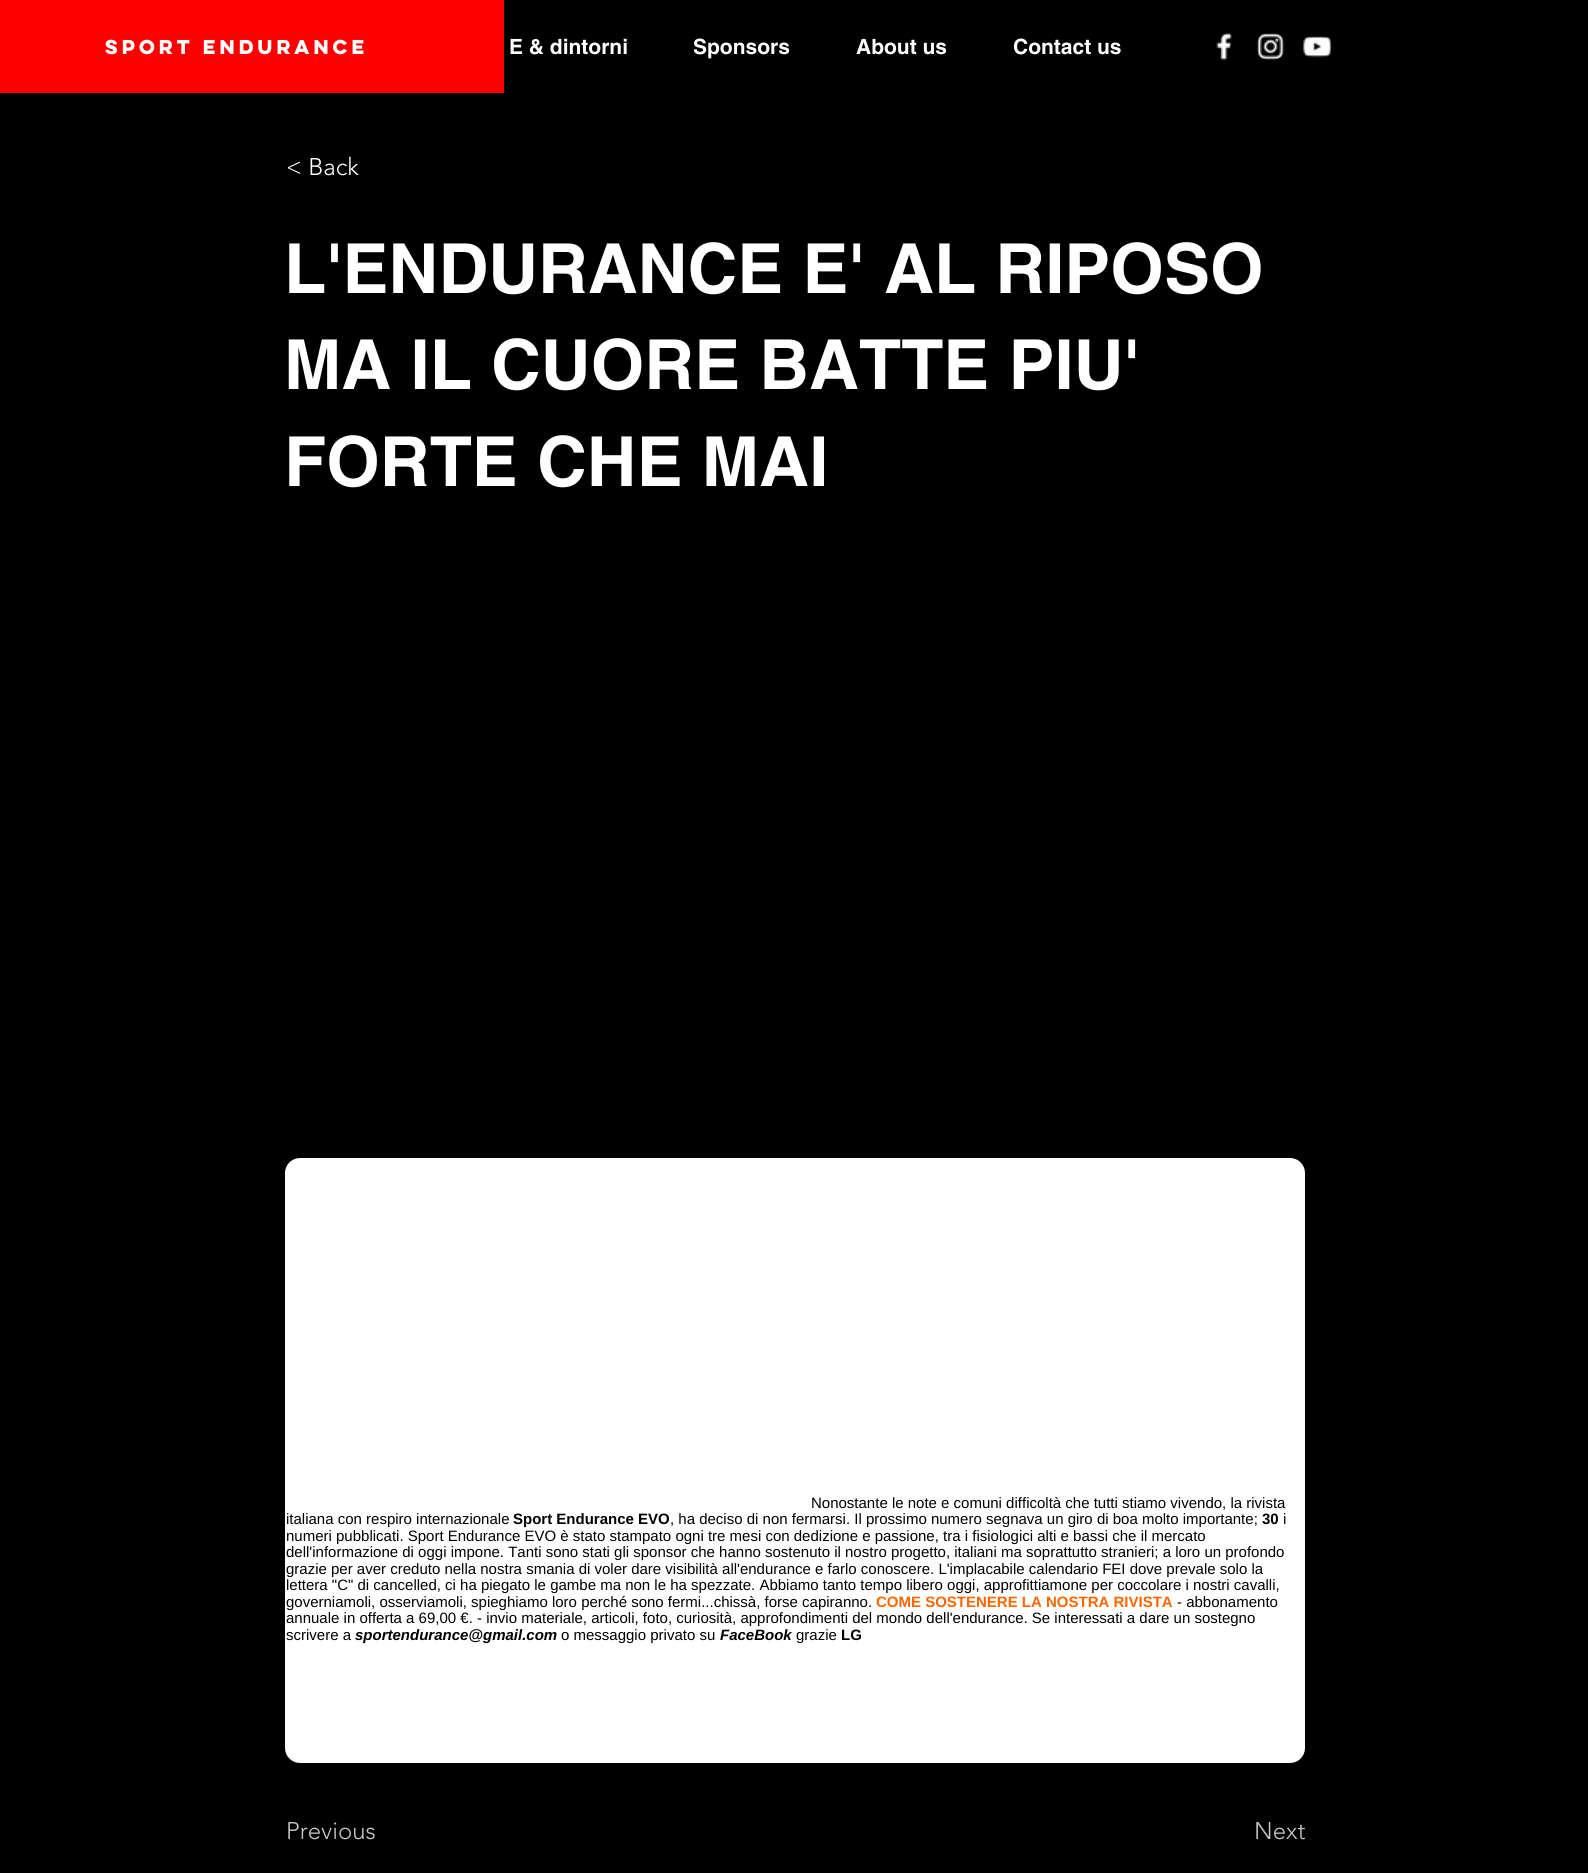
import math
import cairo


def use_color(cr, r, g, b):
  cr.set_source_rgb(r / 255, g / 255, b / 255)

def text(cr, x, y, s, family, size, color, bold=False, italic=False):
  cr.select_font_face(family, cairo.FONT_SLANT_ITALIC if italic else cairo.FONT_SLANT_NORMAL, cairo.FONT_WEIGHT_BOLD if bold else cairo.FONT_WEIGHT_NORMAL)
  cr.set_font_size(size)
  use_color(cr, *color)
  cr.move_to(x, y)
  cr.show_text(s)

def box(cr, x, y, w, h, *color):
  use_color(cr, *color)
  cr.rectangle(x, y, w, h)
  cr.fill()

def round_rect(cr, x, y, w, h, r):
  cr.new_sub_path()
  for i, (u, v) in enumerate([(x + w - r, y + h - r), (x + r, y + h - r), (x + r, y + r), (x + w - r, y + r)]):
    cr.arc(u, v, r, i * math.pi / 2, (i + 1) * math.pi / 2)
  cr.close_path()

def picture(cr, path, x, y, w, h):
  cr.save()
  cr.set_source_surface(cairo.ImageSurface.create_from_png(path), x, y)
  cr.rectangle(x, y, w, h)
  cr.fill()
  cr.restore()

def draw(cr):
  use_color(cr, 0, 0, 0)
  cr.paint()
  box(cr, 0, 0, 504, 93, 255, 0, 0)
  picture(cr, "img_01.png", 1216, 32, 16, 29)
  picture(cr, "img_02.png", 1257, 33, 28, 28)
  picture(cr, "img_03.png", 1303, 36, 29, 22)
  use_color(cr, 255, 255, 255)
  round_rect(cr, 286, 1159, 1018, 603, 14)
  cr.fill_preserve()
  cr.stroke()
  text(cr, 105, 54, "Sport endurANCE", "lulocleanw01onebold", 18, (255, 255, 255), bold=True)
  text(cr, 509, 54, "E & dintorni", "helvetica", 21, (255, 255, 255), bold=True)
  text(cr, 693, 54, "Sponsors", "helvetica", 21, (255, 255, 255), bold=True)
  text(cr, 856, 54, "About us", "helvetica", 21, (255, 255, 255), bold=True)
  text(cr, 1013, 54, "Contact us", "helvetica", 21, (255, 255, 255), bold=True)
  text(cr, 286, 175, "< Back", "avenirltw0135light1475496 Light", 24, (255, 255, 255))
  text(cr, 284, 293, "L'ENDURANCE E' AL RIPOSO", "helvetica", 69, (255, 255, 255), bold=True)
  text(cr, 284, 389, "MA IL CUORE BATTE PIU'", "helvetica", 69, (255, 255, 255), bold=True)
  text(cr, 284, 486, "FORTE CHE MAI", "helvetica", 69, (255, 255, 255), bold=True)
  text(cr, 811, 1508, "Nonostante le note e comuni difficoltà che tutti stiamo vivendo, la rivista", "Liberation Sans", 15, (0, 0, 0))
  text(cr, 286, 1524, "italiana con respiro internazionale", "Liberation Sans", 15, (0, 0, 0))
  text(cr, 513, 1524, "Sport Endurance EVO", "Liberation Sans", 15, (0, 0, 0), bold=True)
  text(cr, 670, 1524, ", ha deciso di non fermarsi. Il prossimo numero segnava un giro di boa molto importante;", "Liberation Sans", 15, (0, 0, 0))
  text(cr, 1262, 1524, "30", "Liberation Sans", 15, (0, 0, 0), bold=True)
  text(cr, 1283, 1524, "i", "Liberation Sans", 15, (0, 0, 0))
  text(cr, 286, 1541, "numeri pubblicati. Sport Endurance EVO è stato stampato ogni tre mesi con dedizione e passione, tra i fisiologici alti e bassi che il mercato", "Liberation Sans", 15, (0, 0, 0))
  text(cr, 286, 1557, "dell'informazione di oggi impone. Tanti sono stati gli sponsor che hanno sostenuto il nostro progetto, italiani ma soprattutto stranieri; a loro un profondo", "Liberation Sans", 15, (0, 0, 0))
  text(cr, 286, 1574, "grazie per aver creduto nella nostra smania di voler dare visibilità all'endurance e farlo conoscere. L'implacabile calendario FEI dove prevale solo la", "Liberation Sans", 15, (0, 0, 0))
  text(cr, 286, 1590, "lettera \"C\" di cancelled, ci ha piegato le gambe ma non le ha spezzate. Abbiamo tanto tempo libero oggi, approfittiamone per coccolare i nostri cavalli,", "Liberation Sans", 15, (0, 0, 0))
  text(cr, 286, 1607, "governiamoli, osserviamoli, spieghiamo loro perché sono fermi...chissà, forse capiranno.", "Liberation Sans", 15, (0, 0, 0))
  text(cr, 876, 1607, "COME SOSTENERE LA NOSTRA RIVISTA", "Liberation Sans", 15, (255, 102, 0), bold=True)
  text(cr, 1177, 1607, "- abbonamento", "Liberation Sans", 15, (0, 0, 0))
  text(cr, 286, 1623, "annuale in offerta a 69,00 €. - invio materiale, articoli, foto, curiosità, approfondimenti del mondo dell'endurance. Se interessati a dare un sostegno", "Liberation Sans", 15, (0, 0, 0))
  text(cr, 286, 1640, "scrivere a", "Liberation Sans", 15, (0, 0, 0))
  text(cr, 355, 1640, "sportendurance@gmail.com", "Liberation Sans", 15, (0, 0, 0), bold=True, italic=True)
  text(cr, 561, 1640, "o messaggio privato su", "Liberation Sans", 15, (0, 0, 0))
  text(cr, 720, 1640, "FaceBook", "Liberation Sans", 15, (0, 0, 0), bold=True, italic=True)
  text(cr, 796, 1640, "grazie", "Liberation Sans", 15, (0, 0, 0))
  text(cr, 841, 1640, "LG", "Liberation Sans", 15, (0, 0, 0), bold=True)
  text(cr, 286, 1839, "Previous", "avenirltw0135light1475496 Light", 24, (199, 199, 199))
  text(cr, 1254, 1839, "Next", "avenirltw0135light1475496 Light", 24, (199, 199, 199))


surface = cairo.ImageSurface(cairo.FORMAT_RGB24, 1588, 1873)
cr = cairo.Context(surface)
options = cairo.FontOptions()
options.set_hint_metrics(cairo.HINT_METRICS_OFF)
options.set_hint_style(cairo.HINT_STYLE_NONE)
cr.set_font_options(options)
cr.set_miter_limit(4)
draw(cr)
surface.write_to_png("out.png")
